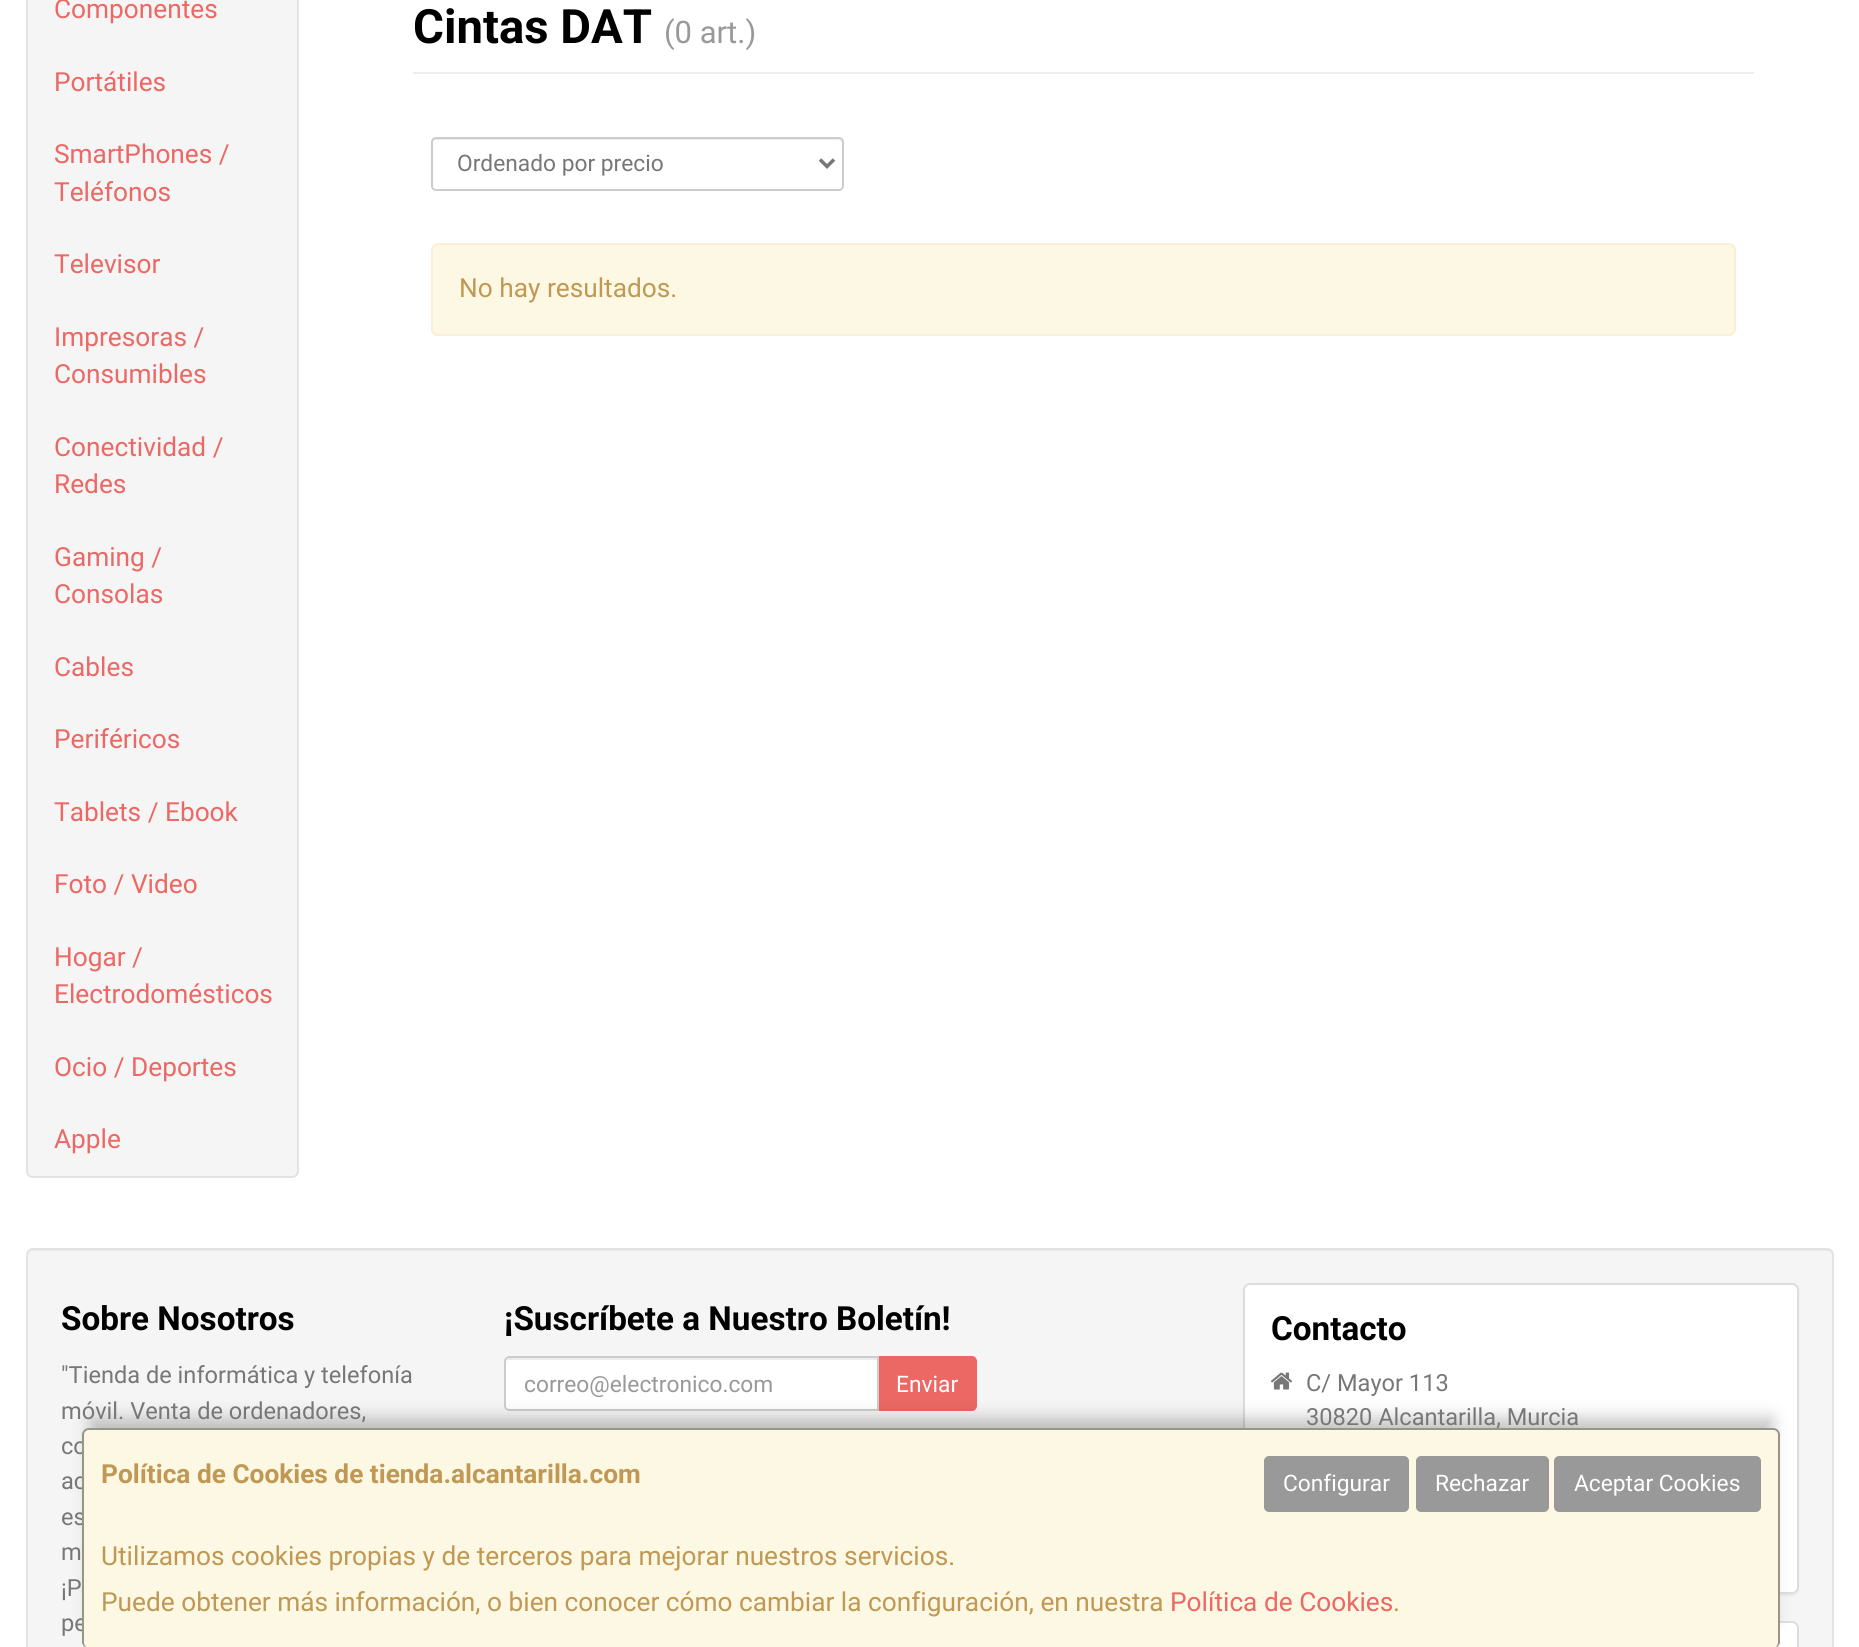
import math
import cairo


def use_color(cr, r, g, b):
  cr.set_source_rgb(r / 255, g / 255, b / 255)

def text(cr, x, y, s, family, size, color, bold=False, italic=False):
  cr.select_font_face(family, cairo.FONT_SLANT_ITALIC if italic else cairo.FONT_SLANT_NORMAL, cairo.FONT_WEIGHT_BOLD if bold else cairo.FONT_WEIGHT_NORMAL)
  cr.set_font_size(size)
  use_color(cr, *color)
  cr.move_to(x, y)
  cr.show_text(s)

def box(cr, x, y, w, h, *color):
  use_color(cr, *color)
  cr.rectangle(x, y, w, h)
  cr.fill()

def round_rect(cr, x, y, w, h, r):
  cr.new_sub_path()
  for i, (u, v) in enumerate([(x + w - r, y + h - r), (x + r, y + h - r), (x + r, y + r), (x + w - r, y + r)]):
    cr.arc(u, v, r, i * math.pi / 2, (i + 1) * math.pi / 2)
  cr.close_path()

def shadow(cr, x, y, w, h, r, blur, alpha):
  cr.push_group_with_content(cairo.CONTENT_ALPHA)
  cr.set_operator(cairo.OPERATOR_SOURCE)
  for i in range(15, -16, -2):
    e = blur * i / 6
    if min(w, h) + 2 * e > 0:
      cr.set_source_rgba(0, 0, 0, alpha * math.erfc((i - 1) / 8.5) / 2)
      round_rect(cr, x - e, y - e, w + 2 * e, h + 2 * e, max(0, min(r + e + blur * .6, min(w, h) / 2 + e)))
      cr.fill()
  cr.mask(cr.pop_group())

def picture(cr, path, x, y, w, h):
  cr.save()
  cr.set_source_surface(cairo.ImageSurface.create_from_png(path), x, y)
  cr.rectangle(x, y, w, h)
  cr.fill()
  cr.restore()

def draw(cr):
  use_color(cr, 255, 255, 255)
  cr.paint()
  use_color(cr, 245, 245, 245)
  round_rect(cr, 27, -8, 271, 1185, 6)
  cr.fill_preserve()
  use_color(cr, 227, 227, 227)
  cr.stroke()
  box(cr, 413, 72, 1341, 2, 238, 238, 238)
  use_color(cr, 236, 236, 236)
  cr.new_path()
  cr.move_to(436, 140)
  cr.line_to(838, 140)
  cr.curve_to(840, 140, 842, 142, 842, 144)
  cr.curve_to(842, 141, 842, 138, 838, 138)
  cr.line_to(436, 138)
  cr.curve_to(432, 138, 432, 141, 432, 144)
  cr.curve_to(432, 142, 434, 140, 436, 140)
  cr.close_path()
  cr.fill()
  round_rect(cr, 432, 138, 411, 52, 4)
  use_color(cr, 204, 204, 204)
  cr.stroke()
  cr.new_path()
  cr.move_to(820, 159.5)
  cr.line_to(827, 166.5)
  cr.line_to(834, 159.5)
  use_color(cr, 119, 119, 119)
  cr.set_line_width(3.5)
  cr.stroke()
  use_color(cr, 252, 248, 227)
  round_rect(cr, 432, 244, 1303, 91, 6)
  cr.fill_preserve()
  use_color(cr, 251, 238, 213)
  cr.set_line_width(2)
  cr.stroke()
  use_color(cr, 245, 245, 245)
  round_rect(cr, 26, 1248, 1808, 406, 7)
  cr.fill()
  use_color(cr, 233, 233, 233)
  cr.new_path()
  cr.move_to(33, 1251)
  cr.line_to(1827, 1251)
  cr.curve_to(1830, 1251, 1832, 1254, 1832, 1256)
  cr.line_to(1832, 1255)
  cr.curve_to(1832, 1252, 1830, 1250, 1827, 1250)
  cr.line_to(33, 1250)
  cr.curve_to(30, 1250, 28, 1252, 28, 1255)
  cr.line_to(28, 1256)
  cr.curve_to(28, 1254, 30, 1251, 33, 1251)
  cr.close_path()
  cr.fill()
  round_rect(cr, 27, 1249, 1806, 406, 6)
  use_color(cr, 227, 227, 227)
  cr.stroke()
  use_color(cr, 235, 104, 100)
  cr.new_path()
  cr.move_to(878, 1357)
  cr.line_to(972, 1357)
  cr.curve_to(974, 1357, 976, 1359, 976, 1361)
  cr.line_to(976, 1406)
  cr.curve_to(976, 1408, 974, 1410, 972, 1410)
  cr.line_to(878, 1410)
  cr.close_path()
  cr.fill_preserve()
  cr.stroke()
  use_color(cr, 255, 255, 255)
  cr.new_path()
  cr.move_to(509, 1356)
  cr.line_to(879, 1356)
  cr.line_to(879, 1411)
  cr.line_to(509, 1411)
  cr.curve_to(506, 1411, 504, 1409, 504, 1406)
  cr.line_to(504, 1361)
  cr.curve_to(504, 1358, 506, 1356, 509, 1356)
  cr.close_path()
  cr.fill()
  use_color(cr, 236, 236, 236)
  cr.new_path()
  cr.move_to(509, 1360)
  cr.line_to(877, 1360)
  cr.line_to(877, 1358)
  cr.line_to(510, 1358)
  cr.curve_to(507, 1358, 506, 1360, 506, 1363)
  cr.curve_to(506, 1361, 507, 1360, 509, 1360)
  cr.close_path()
  cr.fill()
  cr.new_path()
  cr.move_to(509, 1357)
  cr.line_to(878, 1357)
  cr.line_to(878, 1410)
  cr.line_to(509, 1410)
  cr.curve_to(507, 1410, 505, 1408, 505, 1406)
  cr.line_to(505, 1361)
  cr.curve_to(505, 1359, 507, 1357, 509, 1357)
  cr.close_path()
  use_color(cr, 204, 204, 204)
  cr.stroke()
  use_color(cr, 0, 0, 0)
  shadow(cr, 1243, 1285, 556, 311, 7, 1, 0.05)
  use_color(cr, 255, 255, 255)
  round_rect(cr, 1244, 1284, 554, 309, 6)
  cr.fill_preserve()
  use_color(cr, 221, 221, 221)
  cr.stroke()
  picture(cr, "img_01.png", 1270, 1372, 22, 18)
  use_color(cr, 255, 255, 255)
  round_rect(cr, 1244, 1622, 554, 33, 6)
  cr.fill_preserve()
  use_color(cr, 221, 221, 221)
  cr.stroke()
  use_color(cr, 0, 0, 0)
  shadow(cr, 91, 1419, 1680, 203, 0, 9, 0.25)
  text(cr, 54, 18, "Componentes", "Roboto", 26.25, (235, 104, 100))
  text(cr, 54, 91, "Portátiles", "Roboto", 26.25, (235, 104, 100))
  text(cr, 54, 163, "SmartPhones /", "Roboto", 26.25, (235, 104, 100))
  text(cr, 54, 201, "Teléfonos", "Roboto", 26.25, (235, 104, 100))
  text(cr, 54, 273, "Televisor", "Roboto", 26.25, (235, 104, 100))
  text(cr, 54, 346, "Impresoras /", "Roboto", 26.25, (235, 104, 100))
  text(cr, 54, 383, "Consumibles", "Roboto", 26.25, (235, 104, 100))
  text(cr, 54, 456, "Conectividad /", "Roboto", 26.25, (235, 104, 100))
  text(cr, 54, 493, "Redes", "Roboto", 26.25, (235, 104, 100))
  text(cr, 54, 566, "Gaming /", "Roboto", 26.25, (235, 104, 100))
  text(cr, 54, 603, "Consolas", "Roboto", 26.25, (235, 104, 100))
  text(cr, 54, 676, "Cables", "Roboto", 26.25, (235, 104, 100))
  text(cr, 54, 748, "Periféricos", "Roboto", 26.25, (235, 104, 100))
  text(cr, 54, 821, "Tablets / Ebook", "Roboto", 26.25, (235, 104, 100))
  text(cr, 54, 893, "Foto / Video", "Roboto", 26.25, (235, 104, 100))
  text(cr, 54, 966, "Hogar /", "Roboto", 26.25, (235, 104, 100))
  text(cr, 54, 1003, "Electrodomésticos", "Roboto", 26.25, (235, 104, 100))
  text(cr, 54, 1076, "Ocio / Deportes", "Roboto", 26.25, (235, 104, 100))
  text(cr, 54, 1148, "Apple", "Roboto", 26.25, (235, 104, 100))
  text(cr, 413, 43, "Cintas DAT", "Roboto", 47.25, (0, 0, 0), bold=True)
  text(cr, 664, 43, "(0 art.)", "Roboto", 31, (153, 153, 153))
  text(cr, 457, 171, "Ordenado por precio", "Roboto", 22.75, (119, 119, 119))
  text(cr, 459, 297, "No hay resultados.", "Roboto", 26.25, (192, 152, 83))
  text(cr, 61, 1330, "Sobre Nosotros", "Roboto", 33.25, (0, 0, 0), bold=True)
  text(cr, 61, 1383, "\"Tienda de informática y telefonía", "Roboto", 23.6, (119, 119, 119))
  text(cr, 61, 1419, "móvil. Venta de ordenadores,", "Roboto", 23.6, (119, 119, 119))
  text(cr, 61, 1454, "co", "Roboto", 23.6, (119, 119, 119))
  text(cr, 61, 1489, "ac", "Roboto", 23.6, (119, 119, 119))
  text(cr, 61, 1525, "es", "Roboto", 23.6, (119, 119, 119))
  text(cr, 61, 1560, "m", "Roboto", 23.6, (119, 119, 119))
  text(cr, 61, 1596, "¡P", "Roboto", 23.6, (119, 119, 119))
  text(cr, 61, 1631, "pe", "Roboto", 23.6, (119, 119, 119))
  text(cr, 504, 1330, "¡Suscríbete a Nuestro Boletín!", "Roboto", 33.25, (0, 0, 0), bold=True)
  text(cr, 524, 1392, "correo@electronico.com", "Roboto", 22.75, (153, 153, 153))
  text(cr, 896, 1392, "Enviar", "Roboto", 22.75, (255, 255, 255))
  text(cr, 1271, 1340, "Contacto", "Roboto", 33.25, (0, 0, 0), bold=True)
  text(cr, 1306, 1391, "C/ Mayor 113", "Roboto", 23.6, (119, 119, 119))
  text(cr, 1306, 1425, "30820 Alcantarilla, Murcia", "Roboto", 23.6, (119, 119, 119))
  use_color(cr, 252, 248, 227)
  round_rect(cr, 82, 1428, 1698, 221, 7)
  cr.fill()
  cr.set_source_rgba(0, 0, 0, 0.4)
  cr.set_fill_rule(cairo.FILL_RULE_EVEN_ODD)
  cr.new_path()
  cr.move_to(89, 1428)
  cr.line_to(1773, 1428)
  cr.curve_to(1777, 1428, 1780, 1431, 1780, 1435)
  cr.line_to(1780, 1642)
  cr.curve_to(1780, 1645, 1777, 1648, 1773, 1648)
  cr.line_to(89, 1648)
  cr.curve_to(85, 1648, 82, 1645, 82, 1642)
  cr.line_to(82, 1435)
  cr.curve_to(82, 1431, 85, 1428, 89, 1428)
  cr.close_path()
  cr.move_to(89, 1430)
  cr.line_to(1773, 1430)
  cr.curve_to(1776, 1430, 1778, 1432, 1778, 1435)
  cr.line_to(1778, 1642)
  cr.curve_to(1778, 1645, 1776, 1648, 1773, 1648)
  cr.line_to(89, 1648)
  cr.curve_to(86, 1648, 84, 1645, 84, 1642)
  cr.line_to(84, 1435)
  cr.curve_to(84, 1432, 86, 1430, 89, 1430)
  cr.close_path()
  cr.fill()
  text(cr, 101, 1483, "Política de Cookies de tienda.alcantarilla.com", "Roboto", 26.25, (192, 152, 83), bold=True)
  use_color(cr, 153, 153, 153)
  round_rect(cr, 1265, 1457, 143, 54, 4)
  cr.fill_preserve()
  cr.stroke()
  text(cr, 1283, 1491, "Configurar", "Roboto", 22.75, (255, 255, 255))
  use_color(cr, 153, 153, 153)
  round_rect(cr, 1417, 1457, 131, 54, 4)
  cr.fill_preserve()
  cr.stroke()
  text(cr, 1435, 1491, "Rechazar", "Roboto", 22.75, (255, 255, 255))
  use_color(cr, 153, 153, 153)
  round_rect(cr, 1555, 1457, 205, 54, 4)
  cr.fill_preserve()
  cr.stroke()
  text(cr, 1574, 1491, "Aceptar Cookies", "Roboto", 22.75, (255, 255, 255))
  text(cr, 101, 1565, "Utilizamos cookies propias y de terceros para mejorar nuestros servicios.", "Roboto", 26.25, (192, 152, 83))
  text(cr, 101, 1611, "Puede obtener más información, o bien conocer cómo cambiar la configuración, en nuestra", "Roboto", 26.25, (192, 152, 83))
  text(cr, 1170, 1611, "Política de Cookies", "Roboto", 26.25, (235, 104, 100))
  text(cr, 1393, 1611, ".", "Roboto", 26.25, (192, 152, 83))


surface = cairo.ImageSurface(cairo.FORMAT_RGB24, 1859, 1647)
cr = cairo.Context(surface)
options = cairo.FontOptions()
options.set_hint_metrics(cairo.HINT_METRICS_OFF)
options.set_hint_style(cairo.HINT_STYLE_NONE)
cr.set_font_options(options)
cr.set_miter_limit(4)
draw(cr)
surface.write_to_png("out.png")
